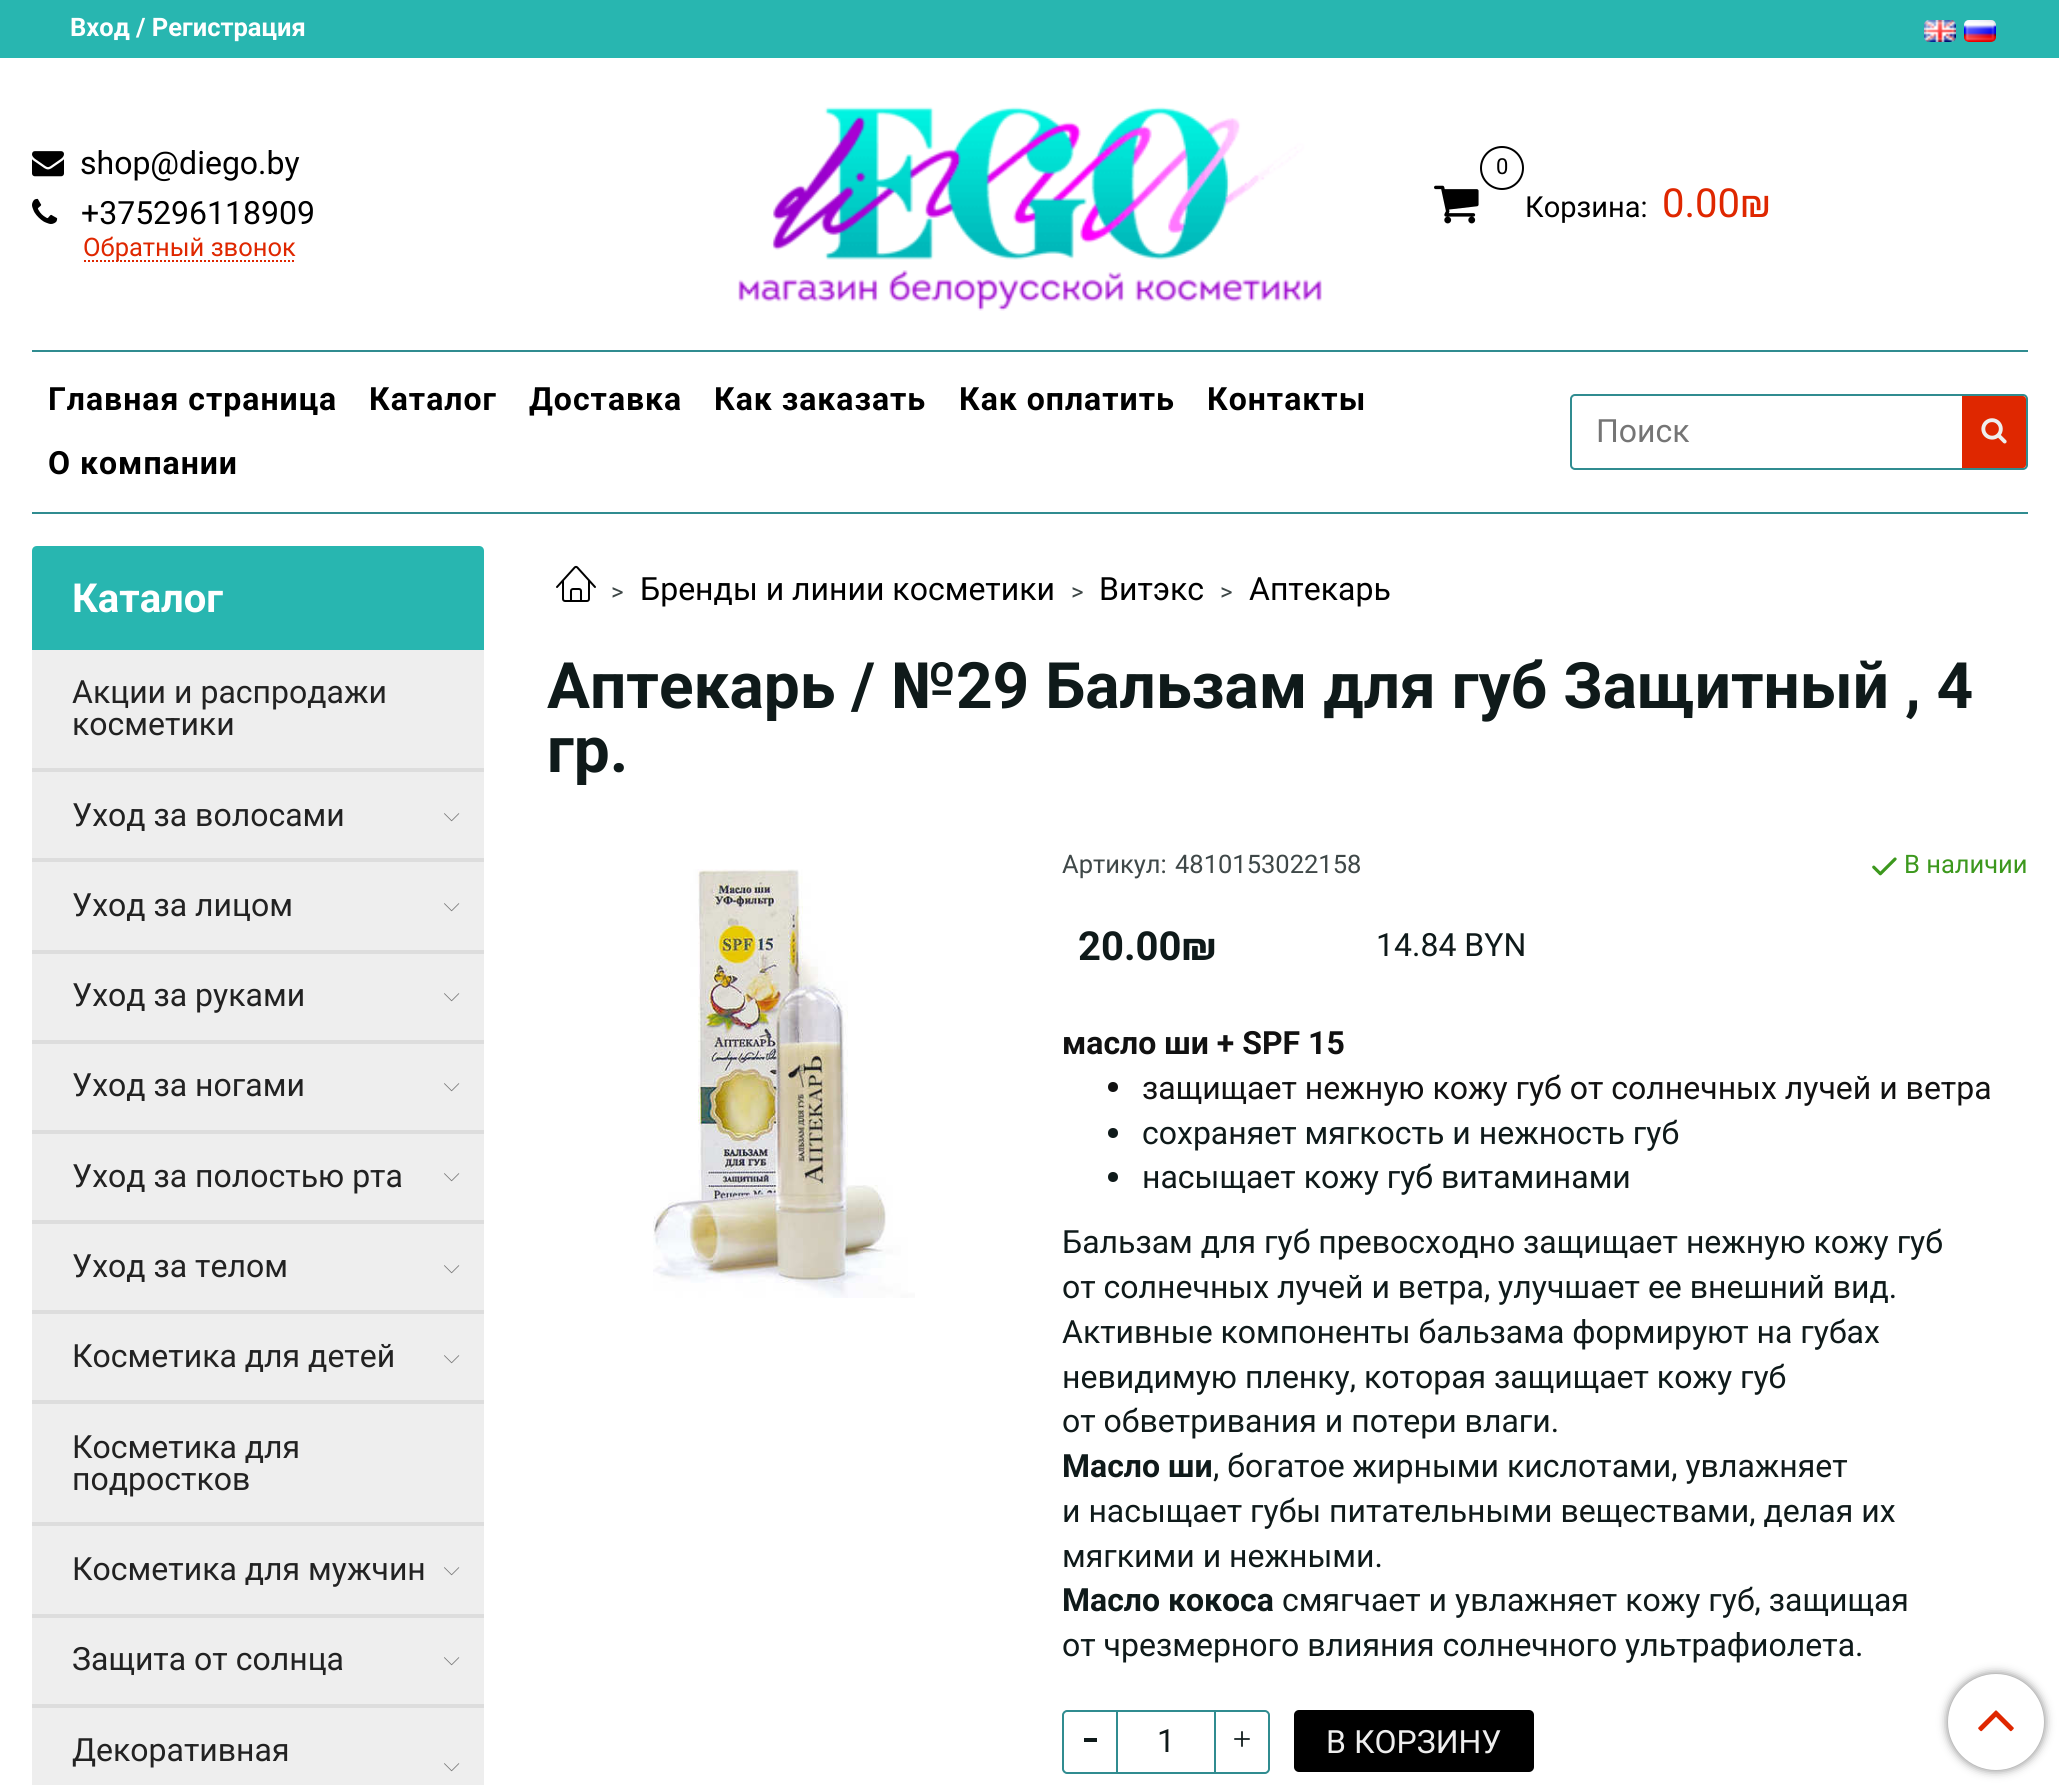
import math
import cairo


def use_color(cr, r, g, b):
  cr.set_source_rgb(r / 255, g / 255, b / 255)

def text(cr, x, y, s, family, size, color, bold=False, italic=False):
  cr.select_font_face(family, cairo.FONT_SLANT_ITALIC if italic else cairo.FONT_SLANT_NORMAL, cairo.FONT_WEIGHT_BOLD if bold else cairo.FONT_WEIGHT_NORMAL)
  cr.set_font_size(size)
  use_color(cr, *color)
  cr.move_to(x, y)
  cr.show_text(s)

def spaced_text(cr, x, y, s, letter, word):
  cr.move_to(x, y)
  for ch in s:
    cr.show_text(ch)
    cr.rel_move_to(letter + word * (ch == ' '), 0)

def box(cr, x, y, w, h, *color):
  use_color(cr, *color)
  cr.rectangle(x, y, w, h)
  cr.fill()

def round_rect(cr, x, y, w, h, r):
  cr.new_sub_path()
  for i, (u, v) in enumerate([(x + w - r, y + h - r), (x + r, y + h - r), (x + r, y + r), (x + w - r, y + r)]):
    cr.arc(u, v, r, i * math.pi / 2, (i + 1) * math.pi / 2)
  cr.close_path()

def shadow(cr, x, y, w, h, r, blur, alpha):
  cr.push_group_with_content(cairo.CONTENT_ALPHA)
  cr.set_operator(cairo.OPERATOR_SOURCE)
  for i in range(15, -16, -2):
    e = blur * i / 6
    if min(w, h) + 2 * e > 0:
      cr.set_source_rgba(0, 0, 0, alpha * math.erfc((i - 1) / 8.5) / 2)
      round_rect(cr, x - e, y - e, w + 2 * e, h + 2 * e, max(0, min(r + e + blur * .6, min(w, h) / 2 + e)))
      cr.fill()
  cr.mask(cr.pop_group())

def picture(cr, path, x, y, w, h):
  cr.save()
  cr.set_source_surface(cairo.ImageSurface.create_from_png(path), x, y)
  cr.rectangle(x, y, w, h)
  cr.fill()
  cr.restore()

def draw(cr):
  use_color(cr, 255, 255, 255)
  cr.paint()
  box(cr, 0, 0, 2059, 58, 40, 182, 176)
  picture(cr, "img_01.png", 1924, 20, 32, 22)
  picture(cr, "img_02.png", 1964, 20, 32, 22)
  picture(cr, "img_03.png", 32, 151, 32, 26)
  picture(cr, "img_04.png", 32, 198, 26, 26)
  cr.new_path()
  cr.move_to(84, 261)
  cr.line_to(296, 261)
  use_color(cr, 223, 39, 0)
  cr.set_dash([2, 2])
  cr.stroke()
  picture(cr, "img_05.png", 738, 107, 584, 204)
  cr.arc(1502, 168, 21, 0, 2 * math.pi)
  use_color(cr, 0, 0, 0)
  cr.set_dash([])
  cr.stroke()
  picture(cr, "img_06.png", 1434, 185, 45, 39)
  box(cr, 32, 350, 1996, 2, 48, 140, 144)
  box(cr, 32, 512, 1996, 2, 48, 140, 144)
  round_rect(cr, 1571, 395, 456, 74, 4)
  cr.stroke()
  use_color(cr, 223, 39, 0)
  cr.new_path()
  cr.move_to(1962, 396)
  cr.line_to(2023, 396)
  cr.curve_to(2024.5, 396, 2026, 397.5, 2026, 399)
  cr.line_to(2026, 465)
  cr.curve_to(2026, 466.5, 2024.5, 468, 2023, 468)
  cr.line_to(1962, 468)
  cr.close_path()
  cr.fill()
  picture(cr, "img_07.png", 1981, 418, 26, 26)
  use_color(cr, 40, 182, 176)
  cr.new_path()
  cr.move_to(37, 546)
  cr.line_to(479, 546)
  cr.curve_to(482, 546, 484, 548, 484, 551)
  cr.line_to(484, 650)
  cr.line_to(32, 650)
  cr.line_to(32, 551)
  cr.curve_to(32, 548, 34, 546, 37, 546)
  cr.close_path()
  cr.fill()
  box(cr, 32, 650, 452, 1135, 238, 238, 238)
  box(cr, 32, 768, 452, 4, 221, 221, 221)
  box(cr, 32, 858, 452, 4, 221, 221, 221)
  picture(cr, "img_08.png", 444, 813, 16, 9)
  box(cr, 32, 950, 452, 4, 221, 221, 221)
  picture(cr, "img_08.png", 444, 903, 16, 9)
  box(cr, 32, 1040, 452, 4, 221, 221, 221)
  picture(cr, "img_08.png", 444, 993, 16, 9)
  box(cr, 32, 1130, 452, 4, 221, 221, 221)
  picture(cr, "img_08.png", 444, 1083, 16, 9)
  box(cr, 32, 1220, 452, 4, 221, 221, 221)
  picture(cr, "img_08.png", 444, 1173, 16, 9)
  box(cr, 32, 1310, 452, 4, 221, 221, 221)
  picture(cr, "img_08.png", 444, 1265, 16, 9)
  box(cr, 32, 1400, 452, 4, 221, 221, 221)
  picture(cr, "img_08.png", 444, 1355, 16, 9)
  box(cr, 32, 1522, 452, 4, 221, 221, 221)
  box(cr, 32, 1614, 452, 4, 221, 221, 221)
  picture(cr, "img_08.png", 444, 1567, 16, 9)
  box(cr, 32, 1704, 452, 4, 221, 221, 221)
  picture(cr, "img_08.png", 444, 1657, 16, 9)
  picture(cr, "img_08.png", 444, 1763, 16, 9)
  picture(cr, "img_09.png", 556, 565, 40, 37)
  picture(cr, "img_10.png", 653, 869, 262, 429)
  picture(cr, "img_11.png", 1872, 857, 25, 19)
  use_color(cr, 17, 17, 17)
  cr.arc(1113, 1087, 5, 0, 2 * math.pi)
  cr.fill()
  use_color(cr, 15, 26, 26)
  cr.arc(1113, 1133, 5, 0, 2 * math.pi)
  cr.fill()
  cr.arc(1113, 1177, 5, 0, 2 * math.pi)
  cr.fill()
  cr.new_path()
  cr.move_to(1067, 1711)
  cr.line_to(1117, 1711)
  cr.line_to(1117, 1773)
  cr.line_to(1067, 1773)
  cr.curve_to(1065, 1773, 1063, 1771, 1063, 1769)
  cr.line_to(1063, 1715)
  cr.curve_to(1063, 1713, 1065, 1711, 1067, 1711)
  cr.close_path()
  use_color(cr, 48, 140, 144)
  cr.stroke()
  box(cr, 1084, 1738, 13, 4, 15, 26, 26)
  box(cr, 1118, 1710, 96, 2, 48, 140, 144)
  box(cr, 1118, 1772, 96, 2, 48, 140, 144)
  cr.new_path()
  cr.move_to(1215, 1711)
  cr.line_to(1265, 1711)
  cr.curve_to(1267, 1711, 1269, 1713, 1269, 1715)
  cr.line_to(1269, 1769)
  cr.curve_to(1269, 1771, 1267, 1773, 1265, 1773)
  cr.line_to(1215, 1773)
  cr.close_path()
  cr.stroke()
  picture(cr, "img_12.png", 1234, 1731, 16, 16)
  use_color(cr, 0, 0, 0)
  round_rect(cr, 1294, 1710, 240, 62, 5)
  cr.fill()
  use_color(cr, 119, 119, 119)
  shadow(cr, 1948, 1674, 96, 96, 48, 5, 1)
  use_color(cr, 255, 255, 255)
  cr.arc(1996, 1722, 48, 0, 2 * math.pi)
  cr.fill()
  picture(cr, "img_13.png", 1978, 1710, 36, 22)
  text(cr, 70, 36, "Вход / Регистрация", "Roboto", 25.5, (255, 255, 255), bold=True)
  text(cr, 80, 174, "shop@diego.by", "Roboto", 32, (0, 0, 0))
  text(cr, 81, 224, "+375296118909", "Roboto", 32, (0, 0, 0))
  text(cr, 83, 256, "Обратный звонок", "Roboto", 25.5, (223, 39, 0))
  text(cr, 1496, 174, "0", "Roboto", 22, (0, 0, 0))
  text(cr, 1525, 217, "Корзина:", "Roboto", 29, (0, 0, 0))
  text(cr, 1662, 217, "0.00₪", "Roboto", 40, (223, 39, 0))
  cr.select_font_face("Roboto", cairo.FONT_SLANT_NORMAL, cairo.FONT_WEIGHT_BOLD)
  cr.set_font_size(32)
  use_color(cr, 0, 0, 0)
  spaced_text(cr, 48, 410, "Главная страница", 1, 0)
  spaced_text(cr, 369, 410, "Каталог", 1, 0)
  spaced_text(cr, 529, 410, "Доставка", 1, 0)
  spaced_text(cr, 714, 410, "Как заказать", 1, 0)
  spaced_text(cr, 959, 410, "Как оплатить", 1, 0)
  spaced_text(cr, 1207, 410, "Контакты", 1, 0)
  spaced_text(cr, 48, 474, "О компании", 1, 0)
  text(cr, 1596, 442, "Поиск", "Roboto", 32, (117, 117, 117))
  text(cr, 72, 612, "Каталог", "Roboto", 40, (255, 255, 255), bold=True)
  text(cr, 72, 703, "Акции и распродажи", "Roboto", 32, (34, 34, 34))
  text(cr, 72, 735, "косметики", "Roboto", 32, (34, 34, 34))
  text(cr, 72, 826, "Уход за волосами", "Roboto", 32, (34, 34, 34))
  text(cr, 72, 916, "Уход за лицом", "Roboto", 32, (34, 34, 34))
  text(cr, 72, 1006, "Уход за руками", "Roboto", 32, (34, 34, 34))
  text(cr, 72, 1096, "Уход за ногами", "Roboto", 32, (34, 34, 34))
  text(cr, 72, 1187, "Уход за полостью рта", "Roboto", 32, (34, 34, 34))
  text(cr, 72, 1277, "Уход за телом", "Roboto", 32, (34, 34, 34))
  text(cr, 72, 1367, "Косметика для детей", "Roboto", 32, (34, 34, 34))
  text(cr, 72, 1458, "Косметика для", "Roboto", 32, (34, 34, 34))
  text(cr, 72, 1490, "подростков", "Roboto", 32, (34, 34, 34))
  text(cr, 72, 1580, "Косметика для мужчин", "Roboto", 32, (34, 34, 34))
  text(cr, 72, 1670, "Защита от солнца", "Roboto", 32, (34, 34, 34))
  text(cr, 72, 1761, "Декоративная", "Roboto", 32, (34, 34, 34))
  text(cr, 611, 600, ">", "Roboto", 24, (63, 72, 72))
  text(cr, 640, 600, "Бренды и линии косметики", "Roboto", 32, (0, 0, 0))
  text(cr, 1071, 600, ">", "Roboto", 24, (63, 72, 72))
  text(cr, 1099, 600, "Витэкс", "Roboto", 32, (0, 0, 0))
  text(cr, 1220, 600, ">", "Roboto", 24, (63, 72, 72))
  text(cr, 1249, 600, "Аптекарь", "Roboto", 32, (0, 0, 0))
  text(cr, 547, 708, "Аптекарь / №29 Бальзам для губ Защитный , 4", "Roboto", 64, (15, 26, 26), bold=True)
  text(cr, 547, 772, "гр.", "Roboto", 64, (15, 26, 26), bold=True)
  text(cr, 1062, 873, "Артикул:", "Roboto", 25.5, (63, 72, 72))
  text(cr, 1175, 873, "4810153022158", "Roboto", 25.5, (63, 72, 72))
  text(cr, 1904, 873, "В наличии", "Roboto", 25.5, (60, 152, 29))
  text(cr, 1078, 960, "20.00₪", "Roboto", 40, (15, 26, 26), bold=True)
  text(cr, 1376, 956, "14.84 BYN", "Roboto", 32, (15, 26, 26))
  text(cr, 1062, 1054, "масло ши + SPF 15", "Roboto", 32, (17, 17, 17), bold=True)
  text(cr, 1142, 1099, "защищает нежную кожу губ от солнечных лучей и ветра", "Roboto", 32, (17, 17, 17))
  text(cr, 1142, 1144, "сохраняет мягкость и нежность губ", "Roboto", 32, (15, 26, 26))
  text(cr, 1142, 1188, "насыщает кожу губ витаминами", "Roboto", 32, (15, 26, 26))
  text(cr, 1062, 1253, "Бальзам для губ превосходно защищает нежную кожу губ", "Roboto", 32, (15, 26, 26))
  text(cr, 1062, 1298, "от солнечных лучей и ветра, улучшает ее внешний вид.", "Roboto", 32, (15, 26, 26))
  text(cr, 1062, 1343, "Активные компоненты бальзама формируют на губах", "Roboto", 32, (15, 26, 26))
  text(cr, 1062, 1388, "невидимую пленку, которая защищает кожу губ", "Roboto", 32, (15, 26, 26))
  text(cr, 1062, 1432, "от обветривания и потери влаги.", "Roboto", 32, (15, 26, 26))
  text(cr, 1062, 1477, "Масло ши", "Roboto", 32, (15, 26, 26), bold=True)
  text(cr, 1213, 1477, ", богатое жирными кислотами, увлажняет", "Roboto", 32, (15, 26, 26))
  text(cr, 1062, 1522, "и насыщает губы питательными веществами, делая их", "Roboto", 32, (15, 26, 26))
  text(cr, 1062, 1567, "мягкими и нежными.", "Roboto", 32, (15, 26, 26))
  text(cr, 1062, 1611, "Масло кокоса", "Roboto", 32, (15, 26, 26), bold=True)
  text(cr, 1282, 1611, "смягчает и увлажняет кожу губ, защищая", "Roboto", 32, (15, 26, 26))
  text(cr, 1062, 1656, "от чрезмерного влияния солнечного ультрафиолета.", "Roboto", 32, (15, 26, 26))
  text(cr, 1157, 1752, "1", "Roboto", 32, (15, 26, 26))
  text(cr, 1326, 1753, "В КОРЗИНУ", "Roboto", 32, (238, 238, 238))


surface = cairo.ImageSurface(cairo.FORMAT_RGB24, 2059, 1785)
cr = cairo.Context(surface)
options = cairo.FontOptions()
options.set_hint_metrics(cairo.HINT_METRICS_OFF)
options.set_hint_style(cairo.HINT_STYLE_NONE)
cr.set_font_options(options)
cr.set_miter_limit(4)
draw(cr)
surface.write_to_png("out.png")
